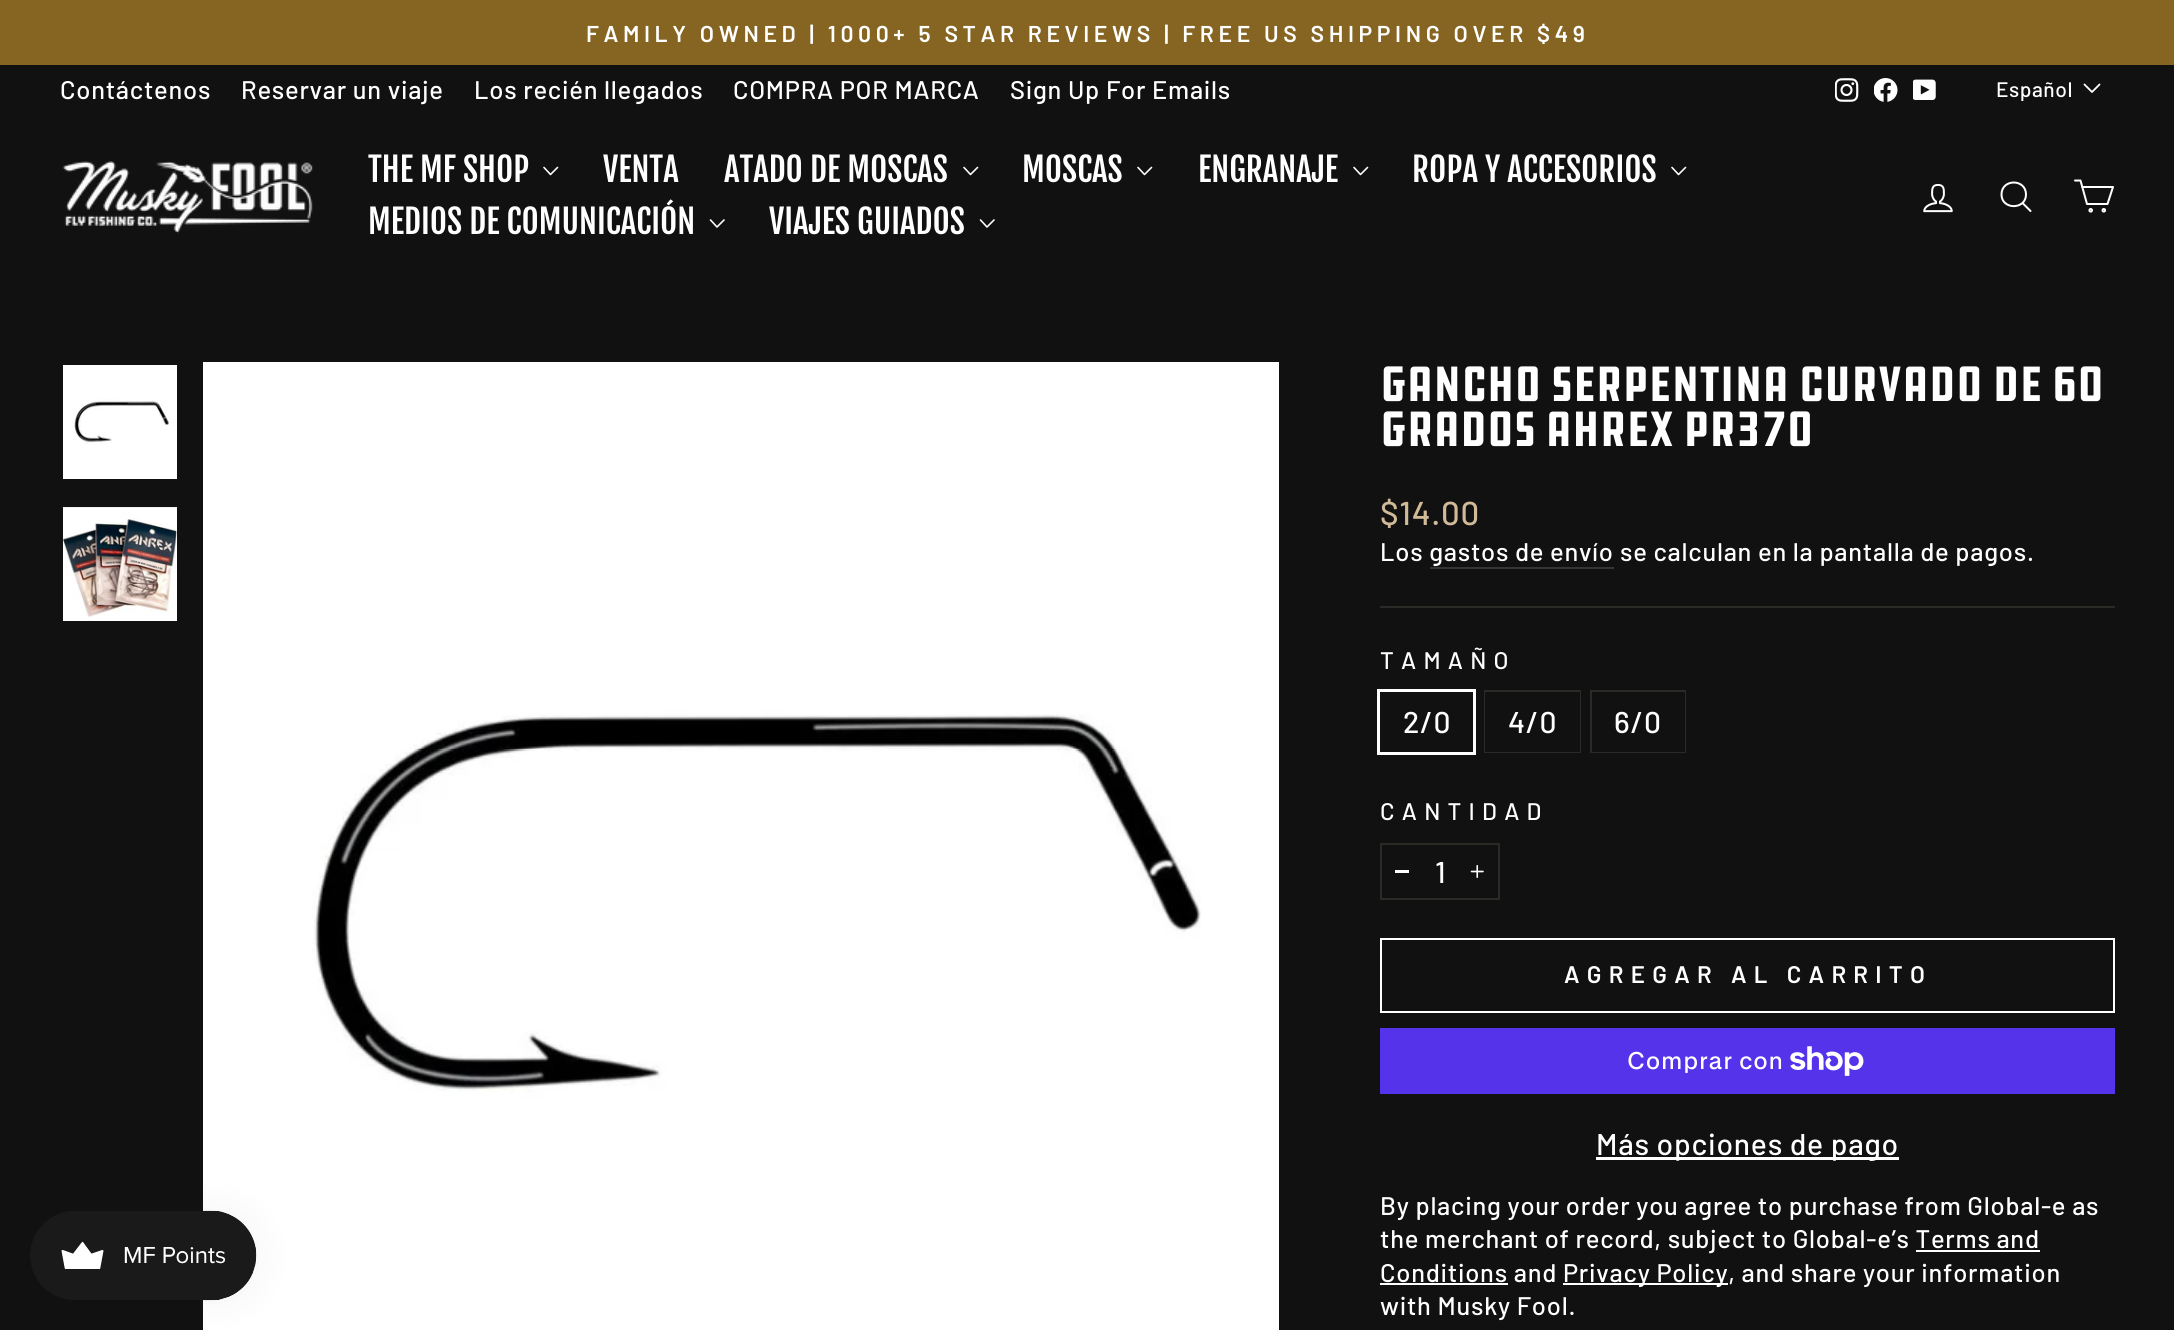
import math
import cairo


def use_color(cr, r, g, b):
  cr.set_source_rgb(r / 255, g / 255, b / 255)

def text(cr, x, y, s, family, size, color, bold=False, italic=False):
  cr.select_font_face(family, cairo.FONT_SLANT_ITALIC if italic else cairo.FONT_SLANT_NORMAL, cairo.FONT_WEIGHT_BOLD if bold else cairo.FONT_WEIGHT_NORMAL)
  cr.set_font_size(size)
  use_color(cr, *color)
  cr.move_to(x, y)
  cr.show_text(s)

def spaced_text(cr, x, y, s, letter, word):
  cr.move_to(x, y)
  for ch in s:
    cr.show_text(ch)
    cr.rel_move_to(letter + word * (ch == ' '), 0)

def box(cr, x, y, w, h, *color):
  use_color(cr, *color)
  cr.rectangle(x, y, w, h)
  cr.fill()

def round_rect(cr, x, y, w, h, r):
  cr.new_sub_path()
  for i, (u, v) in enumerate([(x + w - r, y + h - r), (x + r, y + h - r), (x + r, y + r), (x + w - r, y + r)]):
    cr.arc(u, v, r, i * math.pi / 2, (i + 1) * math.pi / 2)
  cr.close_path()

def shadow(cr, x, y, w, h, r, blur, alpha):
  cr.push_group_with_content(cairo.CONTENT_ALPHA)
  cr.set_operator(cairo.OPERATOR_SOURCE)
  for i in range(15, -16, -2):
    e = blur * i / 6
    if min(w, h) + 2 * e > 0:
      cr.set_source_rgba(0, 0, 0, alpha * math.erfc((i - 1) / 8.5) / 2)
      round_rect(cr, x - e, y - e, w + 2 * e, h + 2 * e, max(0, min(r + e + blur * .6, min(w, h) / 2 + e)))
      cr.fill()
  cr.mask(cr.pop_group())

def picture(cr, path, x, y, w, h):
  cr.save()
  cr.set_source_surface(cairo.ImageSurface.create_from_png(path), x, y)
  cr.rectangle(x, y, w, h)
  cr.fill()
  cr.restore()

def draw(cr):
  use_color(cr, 17, 17, 17)
  cr.paint()
  box(cr, 0, 0, 2174, 65, 134, 101, 34)
  picture(cr, "img_01.png", 1835, 78, 24, 24)
  picture(cr, "img_02.png", 1874, 78, 24, 24)
  picture(cr, "img_03.png", 1913, 79, 23, 21)
  cr.new_path()
  cr.move_to(2084.5, 84.5)
  cr.line_to(2092, 92)
  cr.line_to(2099.5, 84.5)
  use_color(cr, 255, 255, 255)
  cr.set_line_width(1.8)
  cr.set_line_cap(cairo.LINE_CAP_ROUND)
  cr.set_line_join(cairo.LINE_JOIN_ROUND)
  cr.stroke()
  picture(cr, "img_04.png", 62, 161, 251, 73)
  cr.new_path()
  cr.move_to(544, 167.5)
  cr.line_to(550.5, 174.5)
  cr.line_to(557.5, 167.5)
  cr.set_line_width(1.6)
  cr.stroke()
  cr.new_path()
  cr.move_to(964, 167.5)
  cr.line_to(970.5, 174.5)
  cr.line_to(977.5, 167.5)
  cr.stroke()
  cr.new_path()
  cr.move_to(1138, 167.5)
  cr.line_to(1144.5, 174.5)
  cr.line_to(1151.5, 167.5)
  cr.stroke()
  cr.new_path()
  cr.move_to(1354, 167.5)
  cr.line_to(1360.5, 174.5)
  cr.line_to(1367.5, 167.5)
  cr.stroke()
  cr.new_path()
  cr.move_to(1672, 167.5)
  cr.line_to(1678.5, 174.5)
  cr.line_to(1685.5, 167.5)
  cr.stroke()
  cr.new_path()
  cr.move_to(710.5, 220)
  cr.line_to(717, 227)
  cr.line_to(724, 220)
  cr.stroke()
  cr.new_path()
  cr.move_to(980.5, 220)
  cr.line_to(987, 227)
  cr.line_to(994, 220)
  cr.stroke()
  picture(cr, "img_05.png", 1923, 183, 30, 30)
  cr.new_path()
  cr.move_to(2026, 194.5)
  cr.curve_to(2026, 210, 2001.5, 210, 2001.5, 194.5)
  cr.curve_to(2001.5, 178.5, 2026, 178.5, 2026, 194.5)
  cr.close_path()
  cr.move_to(2030.5, 211)
  cr.line_to(2022.5, 203)
  cr.set_line_width(2)
  cr.stroke()
  cr.new_path()
  cr.move_to(2082, 187)
  cr.line_to(2113, 187)
  cr.line_to(2107.5, 204)
  cr.line_to(2087, 204)
  cr.line_to(2080.5, 180.5)
  cr.line_to(2075, 180.5)
  cr.stroke()
  cr.arc(2090.7, 210.3, 1.3, 0, 2 * math.pi)
  cr.set_line_cap(cairo.LINE_CAP_BUTT)
  cr.set_line_join(cairo.LINE_JOIN_MITER)
  cr.stroke()
  cr.arc(2103.8, 210.3, 1.3, 0, 2 * math.pi)
  cr.stroke()
  picture(cr, "img_06.png", 66, 368, 108, 108)
  cr.rectangle(64.5, 366.5, 111, 111)
  cr.set_line_width(3)
  cr.stroke()
  picture(cr, "img_07.png", 63, 507, 114, 114)
  picture(cr, "img_08.png", 203, 362, 1076, 968)
  box(cr, 1430, 567, 184, 2, 53, 53, 53)
  box(cr, 1380, 606, 735, 2, 43, 42, 39)
  cr.rectangle(1378.5, 690.5, 96, 63)
  use_color(cr, 255, 255, 255)
  cr.stroke()
  cr.rectangle(1485, 691, 95, 61)
  use_color(cr, 43, 42, 39)
  cr.set_line_width(2)
  cr.stroke()
  box(cr, 1485, 692, 95, 60, 17, 17, 17)
  cr.rectangle(1591, 691, 94, 61)
  use_color(cr, 43, 42, 39)
  cr.stroke()
  box(cr, 1592, 692, 93, 60, 17, 17, 17)
  cr.rectangle(1381, 844, 118, 55)
  use_color(cr, 43, 42, 39)
  cr.stroke()
  box(cr, 1395, 870, 14, 3, 255, 255, 255)
  picture(cr, "img_09.png", 1470, 865, 14, 13)
  cr.rectangle(1381, 939, 733, 73)
  cr.stroke()
  box(cr, 1380, 1028, 735, 66, 84, 51, 235)
  picture(cr, "img_10.png", 1790, 1046, 74, 30)
  box(cr, 1596, 1157, 303, 3, 255, 255, 255)
  box(cr, 1916, 1250, 124, 2, 255, 255, 255)
  box(cr, 1380, 1283, 128, 2, 255, 255, 255)
  box(cr, 1563, 1283, 165, 2, 255, 255, 255)
  use_color(cr, 0, 0, 0)
  shadow(cr, 30, 1211, 227, 90, 45, 19, 0.05)
  picture(cr, "img_11.png", 30, 1210, 227, 91)
  cr.select_font_face("Barlow SemiBold")
  cr.set_font_size(22.95)
  use_color(cr, 255, 255, 255)
  spaced_text(cr, 586, 42, "FAMILY OWNED | 1000+ 5 STAR REVIEWS | FREE US SHIPPING OVER $49", 4.6, 0)
  cr.select_font_face("Barlow Medium")
  cr.set_font_size(25.5)
  spaced_text(cr, 60, 99, "Contáctenos", 0.75, 0)
  spaced_text(cr, 241, 99, "Reservar un viaje", 0.75, 0)
  spaced_text(cr, 474, 99, "Los recién llegados", 0.75, 0)
  spaced_text(cr, 733, 99, "COMPRA POR MARCA", 0.75, 0)
  spaced_text(cr, 1010, 99, "Sign Up For Emails", 0.75, 0)
  cr.set_font_size(21)
  spaced_text(cr, 1996, 97, "Español", 0.5, 0)
  text(cr, 368, 182, "THE MF SHOP", "Fjalla One", 33, (255, 255, 255))
  text(cr, 603, 182, "VENTA", "Fjalla One", 33, (255, 255, 255))
  text(cr, 724, 182, "ATADO DE MOSCAS", "Fjalla One", 33, (255, 255, 255))
  text(cr, 1022, 182, "MOSCAS", "Fjalla One", 33, (255, 255, 255))
  text(cr, 1198, 182, "ENGRANAJE", "Fjalla One", 33, (255, 255, 255))
  text(cr, 1412, 182, "ROPA Y ACCESORIOS", "Fjalla One", 33, (255, 255, 255))
  text(cr, 368, 234, "MEDIOS DE COMUNICACIÓN", "Fjalla One", 33, (255, 255, 255))
  text(cr, 769, 234, "VIAJES GUIADOS", "Fjalla One", 33, (255, 255, 255))
  text(cr, 1380, 401, "GANCHO SERPENTINA CURVADO DE 60", "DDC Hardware", 51, (255, 255, 255))
  text(cr, 1380, 446, "GRADOS AHREX PR370", "DDC Hardware", 51, (255, 255, 255))
  cr.select_font_face("Barlow Medium")
  cr.set_font_size(33)
  use_color(cr, 209, 186, 152)
  spaced_text(cr, 1380, 525, "$14.00", 0.75, 0)
  cr.set_font_size(25.5)
  use_color(cr, 255, 255, 255)
  spaced_text(cr, 1380, 561, "Los gastos de envío", 0.75, 0)
  spaced_text(cr, 1620, 561, "se calculan en la pantalla de pagos.", 0.75, 0)
  cr.set_font_size(24)
  spaced_text(cr, 1380, 669, "TAMAÑO", 7.25, 0)
  cr.set_font_size(30)
  spaced_text(cr, 1403, 733, "2/0", 0.75, 0)
  spaced_text(cr, 1508, 733, "4/0", 0.75, 0)
  spaced_text(cr, 1614, 733, "6/0", 0.75, 0)
  cr.set_font_size(24)
  spaced_text(cr, 1380, 820, "CANTIDAD", 7.25, 0)
  cr.set_font_size(30)
  spaced_text(cr, 1435, 883, "1", 0.75, 0)
  cr.select_font_face("Barlow SemiBold")
  cr.set_font_size(24)
  spaced_text(cr, 1564, 983, "AGREGAR AL CARRITO", 7.25, 0)
  cr.select_font_face("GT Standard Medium")
  spaced_text(cr, 1627, 1069, "Comprar con", 0.75, 0)
  cr.select_font_face("Barlow Medium")
  cr.set_font_size(30)
  spaced_text(cr, 1596, 1155, "Más opciones de pago", 0.75, 0)
  cr.set_font_size(25.5)
  spaced_text(cr, 1380, 1215, "By placing your order you agree to purchase from Global-e as", 0.75, 0)
  spaced_text(cr, 1380, 1248, "the merchant of record, subject to Global-e’s Terms and", 0.75, 0)
  spaced_text(cr, 1380, 1282, "Conditions and", 0.75, 0)
  spaced_text(cr, 1563, 1282, "Privacy Policy, and share your information", 0.75, 0)
  spaced_text(cr, 1380, 1315, "with Musky Fool.", 0.75, 0)


surface = cairo.ImageSurface(cairo.FORMAT_RGB24, 2174, 1330)
cr = cairo.Context(surface)
options = cairo.FontOptions()
options.set_hint_metrics(cairo.HINT_METRICS_OFF)
options.set_hint_style(cairo.HINT_STYLE_NONE)
cr.set_font_options(options)
cr.set_miter_limit(4)
draw(cr)
surface.write_to_png("out.png")
